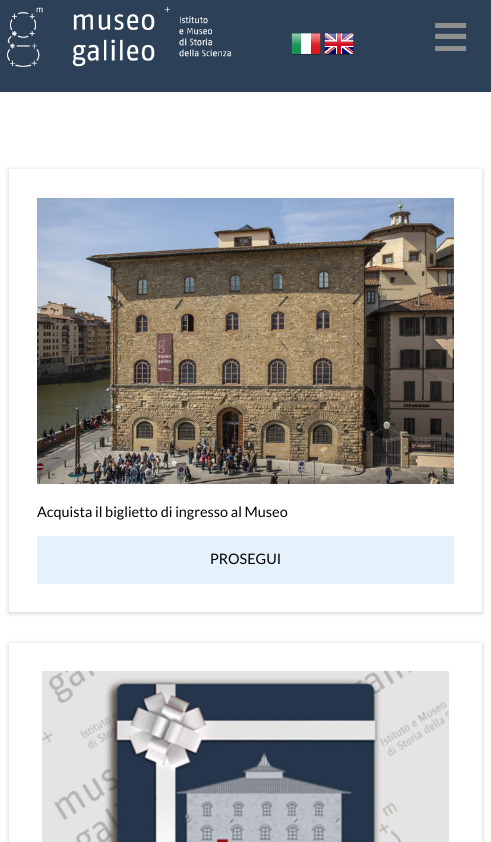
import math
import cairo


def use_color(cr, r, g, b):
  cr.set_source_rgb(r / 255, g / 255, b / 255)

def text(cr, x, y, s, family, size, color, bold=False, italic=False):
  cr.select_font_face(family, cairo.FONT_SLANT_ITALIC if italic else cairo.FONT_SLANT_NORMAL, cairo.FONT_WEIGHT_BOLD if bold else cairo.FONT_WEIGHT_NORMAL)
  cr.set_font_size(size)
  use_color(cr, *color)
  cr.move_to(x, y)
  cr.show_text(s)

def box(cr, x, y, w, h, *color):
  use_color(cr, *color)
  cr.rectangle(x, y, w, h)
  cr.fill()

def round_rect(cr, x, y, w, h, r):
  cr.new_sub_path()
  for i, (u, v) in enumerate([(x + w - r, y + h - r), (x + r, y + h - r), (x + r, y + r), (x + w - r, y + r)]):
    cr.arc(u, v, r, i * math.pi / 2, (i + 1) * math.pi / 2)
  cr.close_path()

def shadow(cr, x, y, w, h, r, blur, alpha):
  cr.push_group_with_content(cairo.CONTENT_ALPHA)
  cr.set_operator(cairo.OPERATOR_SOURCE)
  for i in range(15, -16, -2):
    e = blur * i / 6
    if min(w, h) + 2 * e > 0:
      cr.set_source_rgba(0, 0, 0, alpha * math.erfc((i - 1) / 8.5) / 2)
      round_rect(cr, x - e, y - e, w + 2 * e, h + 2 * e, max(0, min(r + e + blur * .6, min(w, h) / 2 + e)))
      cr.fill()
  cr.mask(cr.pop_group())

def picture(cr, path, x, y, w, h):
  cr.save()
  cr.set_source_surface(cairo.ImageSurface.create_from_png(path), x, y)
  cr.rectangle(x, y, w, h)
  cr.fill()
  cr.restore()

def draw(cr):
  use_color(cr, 255, 255, 255)
  cr.paint()
  box(cr, 0, 0, 491, 92, 44, 64, 87)
  picture(cr, "img_01.png", 7, 7, 224, 60)
  picture(cr, "img_02.png", 291, 33, 30, 22)
  picture(cr, "img_03.png", 324, 33, 30, 22)
  picture(cr, "img_04.png", 435, 23, 32, 28)
  cr.save()
  cr.set_fill_rule(cairo.FILL_RULE_EVEN_ODD)
  cr.new_path()
  cr.move_to(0, 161)
  cr.line_to(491, 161)
  cr.line_to(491, 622)
  cr.line_to(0, 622)
  cr.close_path()
  cr.move_to(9, 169)
  cr.line_to(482, 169)
  cr.line_to(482, 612)
  cr.line_to(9, 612)
  cr.close_path()
  cr.clip()
  use_color(cr, 0, 0, 0)
  shadow(cr, 9, 170, 473, 443, 0, 2.5, 0.2)
  cr.restore()
  picture(cr, "img_05.png", 37, 198, 417, 286)
  box(cr, 37, 536, 417, 48, 229, 241, 251)
  cr.save()
  cr.set_fill_rule(cairo.FILL_RULE_EVEN_ODD)
  cr.new_path()
  cr.move_to(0, 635)
  cr.line_to(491, 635)
  cr.line_to(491, 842)
  cr.line_to(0, 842)
  cr.close_path()
  cr.move_to(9, 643)
  cr.line_to(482, 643)
  cr.line_to(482, 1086)
  cr.line_to(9, 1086)
  cr.close_path()
  cr.clip()
  use_color(cr, 0, 0, 0)
  shadow(cr, 9, 644, 473, 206, 0, 2.5, 0.2)
  cr.restore()
  picture(cr, "img_06.png", 42, 671, 407, 171)
  text(cr, 37, 517, "Acquista il biglietto di ingresso al Museo", "Lato", 14.4, (0, 0, 0))
  text(cr, 210, 564, "PROSEGUI", "Lato", 14.4, (0, 0, 0))


surface = cairo.ImageSurface(cairo.FORMAT_RGB24, 491, 842)
cr = cairo.Context(surface)
options = cairo.FontOptions()
options.set_hint_metrics(cairo.HINT_METRICS_OFF)
options.set_hint_style(cairo.HINT_STYLE_NONE)
cr.set_font_options(options)
cr.set_miter_limit(4)
draw(cr)
surface.write_to_png("out.png")
